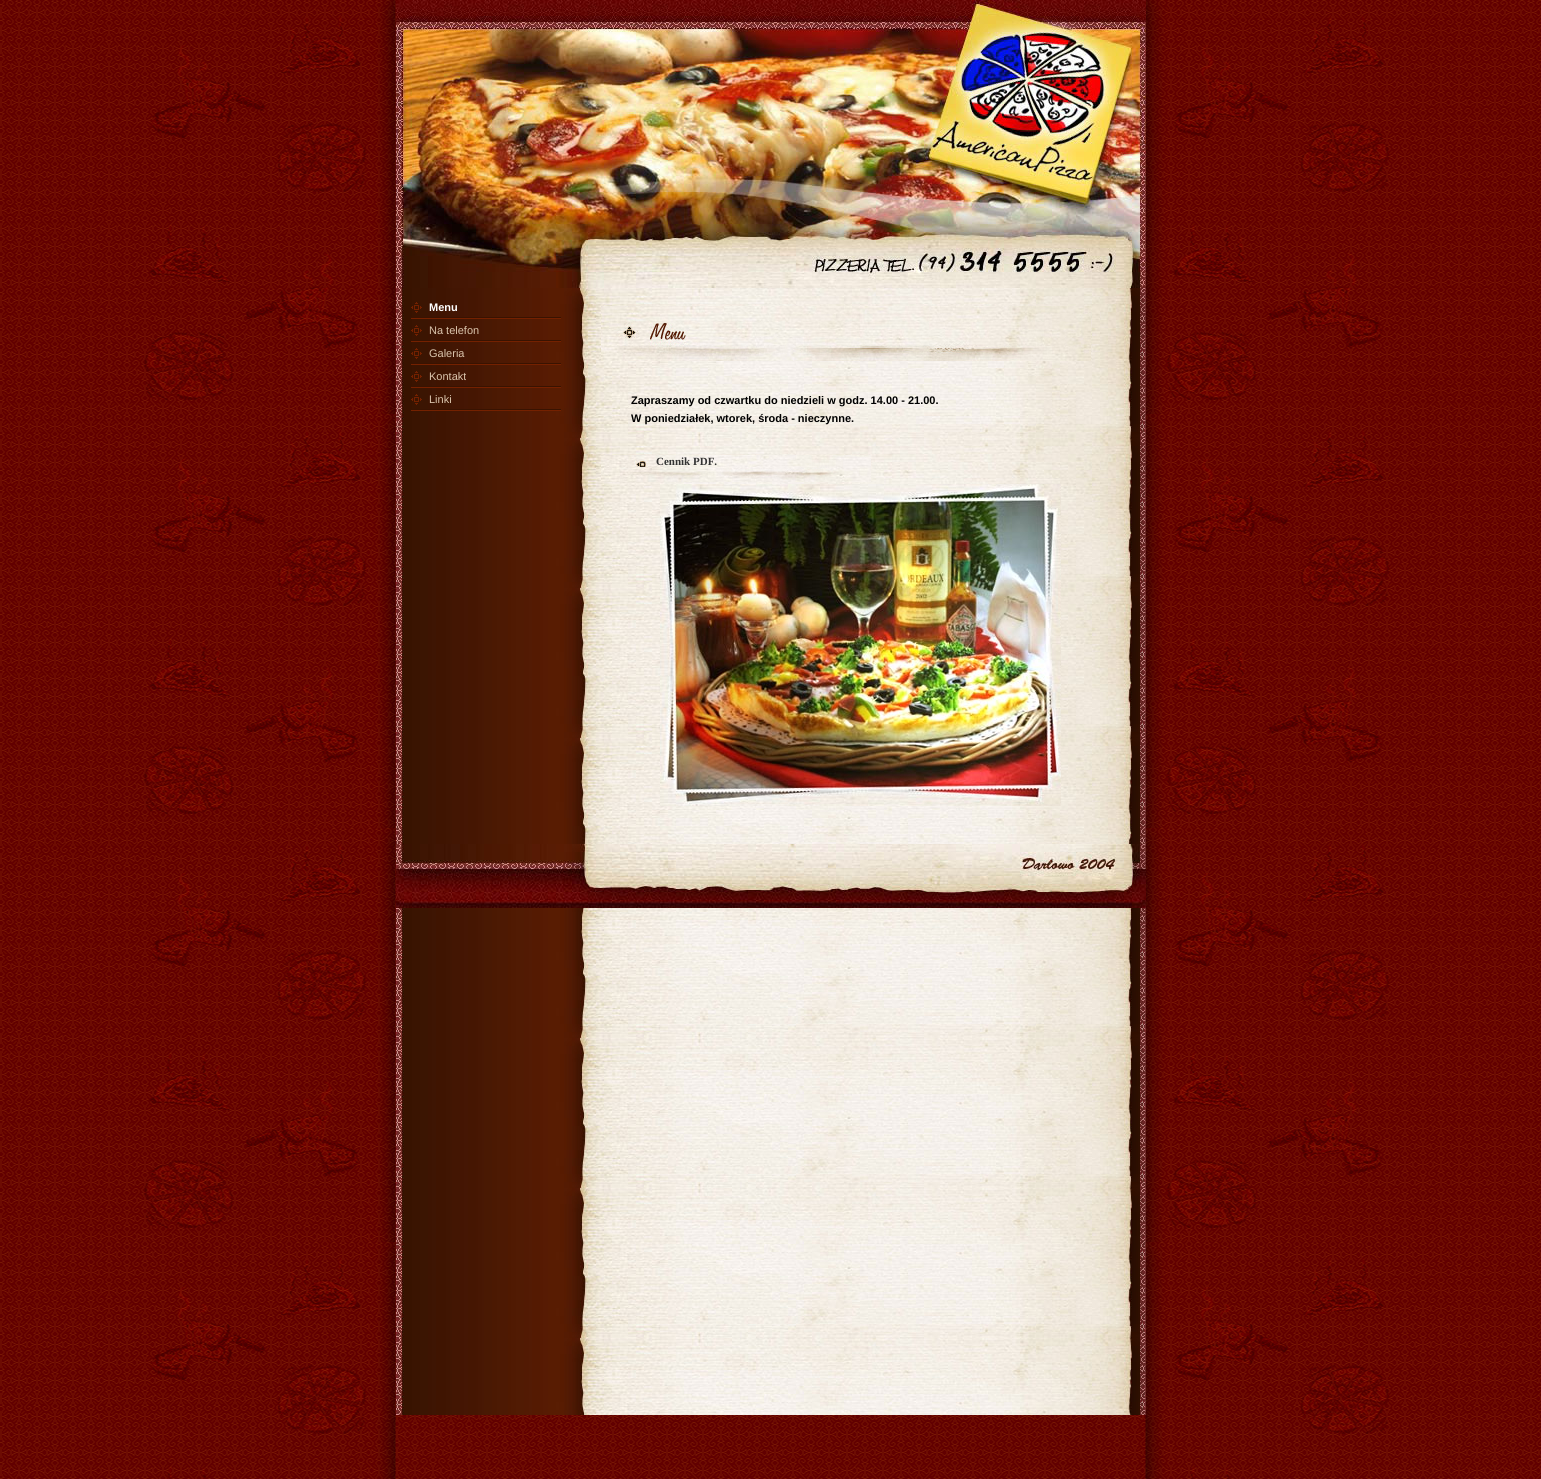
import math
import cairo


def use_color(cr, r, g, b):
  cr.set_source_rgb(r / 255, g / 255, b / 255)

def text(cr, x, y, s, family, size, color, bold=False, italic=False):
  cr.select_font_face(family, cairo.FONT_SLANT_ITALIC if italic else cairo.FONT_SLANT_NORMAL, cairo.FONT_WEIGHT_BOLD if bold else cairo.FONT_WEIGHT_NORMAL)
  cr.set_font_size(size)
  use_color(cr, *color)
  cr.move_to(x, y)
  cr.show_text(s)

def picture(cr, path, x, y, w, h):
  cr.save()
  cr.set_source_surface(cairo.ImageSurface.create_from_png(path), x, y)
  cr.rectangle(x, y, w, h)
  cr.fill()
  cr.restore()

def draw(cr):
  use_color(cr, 255, 255, 255)
  cr.paint()
  picture(cr, "img_01.png", 0, 908, 1541, 571)
  picture(cr, "img_02.png", 0, 0, 1541, 908)
  picture(cr, "img_03.png", 396, 0, 750, 288)
  picture(cr, "img_04.png", 396, 288, 750, 1127)
  picture(cr, "img_05.png", 411, 302, 150, 17)
  picture(cr, "img_06.png", 411, 325, 150, 17)
  picture(cr, "img_07.png", 411, 348, 150, 17)
  picture(cr, "img_08.png", 411, 371, 150, 17)
  picture(cr, "img_09.png", 411, 394, 150, 17)
  picture(cr, "img_10.png", 601, 306, 490, 55)
  picture(cr, "img_11.png", 601, 455, 270, 27)
  picture(cr, "img_12.png", 660, 484, 401, 322)
  picture(cr, "img_13.png", 396, 844, 750, 64)
  text(cr, 429, 311, "Menu", "Liberation Sans", 11, (255, 255, 255), bold=True)
  text(cr, 429, 334, "Na telefon", "Liberation Sans", 11, (219, 197, 173))
  text(cr, 429, 357, "Galeria", "Liberation Sans", 11, (219, 197, 173))
  text(cr, 429, 380, "Kontakt", "Liberation Sans", 11, (219, 197, 173))
  text(cr, 429, 403, "Linki", "Liberation Sans", 11, (219, 197, 173))
  text(cr, 631, 404, "Zapraszamy od czwartku do niedzieli w godz. 14.00 - 21.00.", "Liberation Sans", 11, (0, 0, 0), bold=True)
  text(cr, 631, 422, "W poniedziałek, wtorek, środa - nieczynne.", "Liberation Sans", 11, (0, 0, 0), bold=True)
  text(cr, 656, 465, "Cennik PDF.", "Liberation Serif", 11, (51, 51, 51), bold=True)


surface = cairo.ImageSurface(cairo.FORMAT_RGB24, 1541, 1479)
cr = cairo.Context(surface)
options = cairo.FontOptions()
options.set_hint_metrics(cairo.HINT_METRICS_OFF)
options.set_hint_style(cairo.HINT_STYLE_NONE)
cr.set_font_options(options)
cr.set_miter_limit(4)
draw(cr)
surface.write_to_png("out.png")
